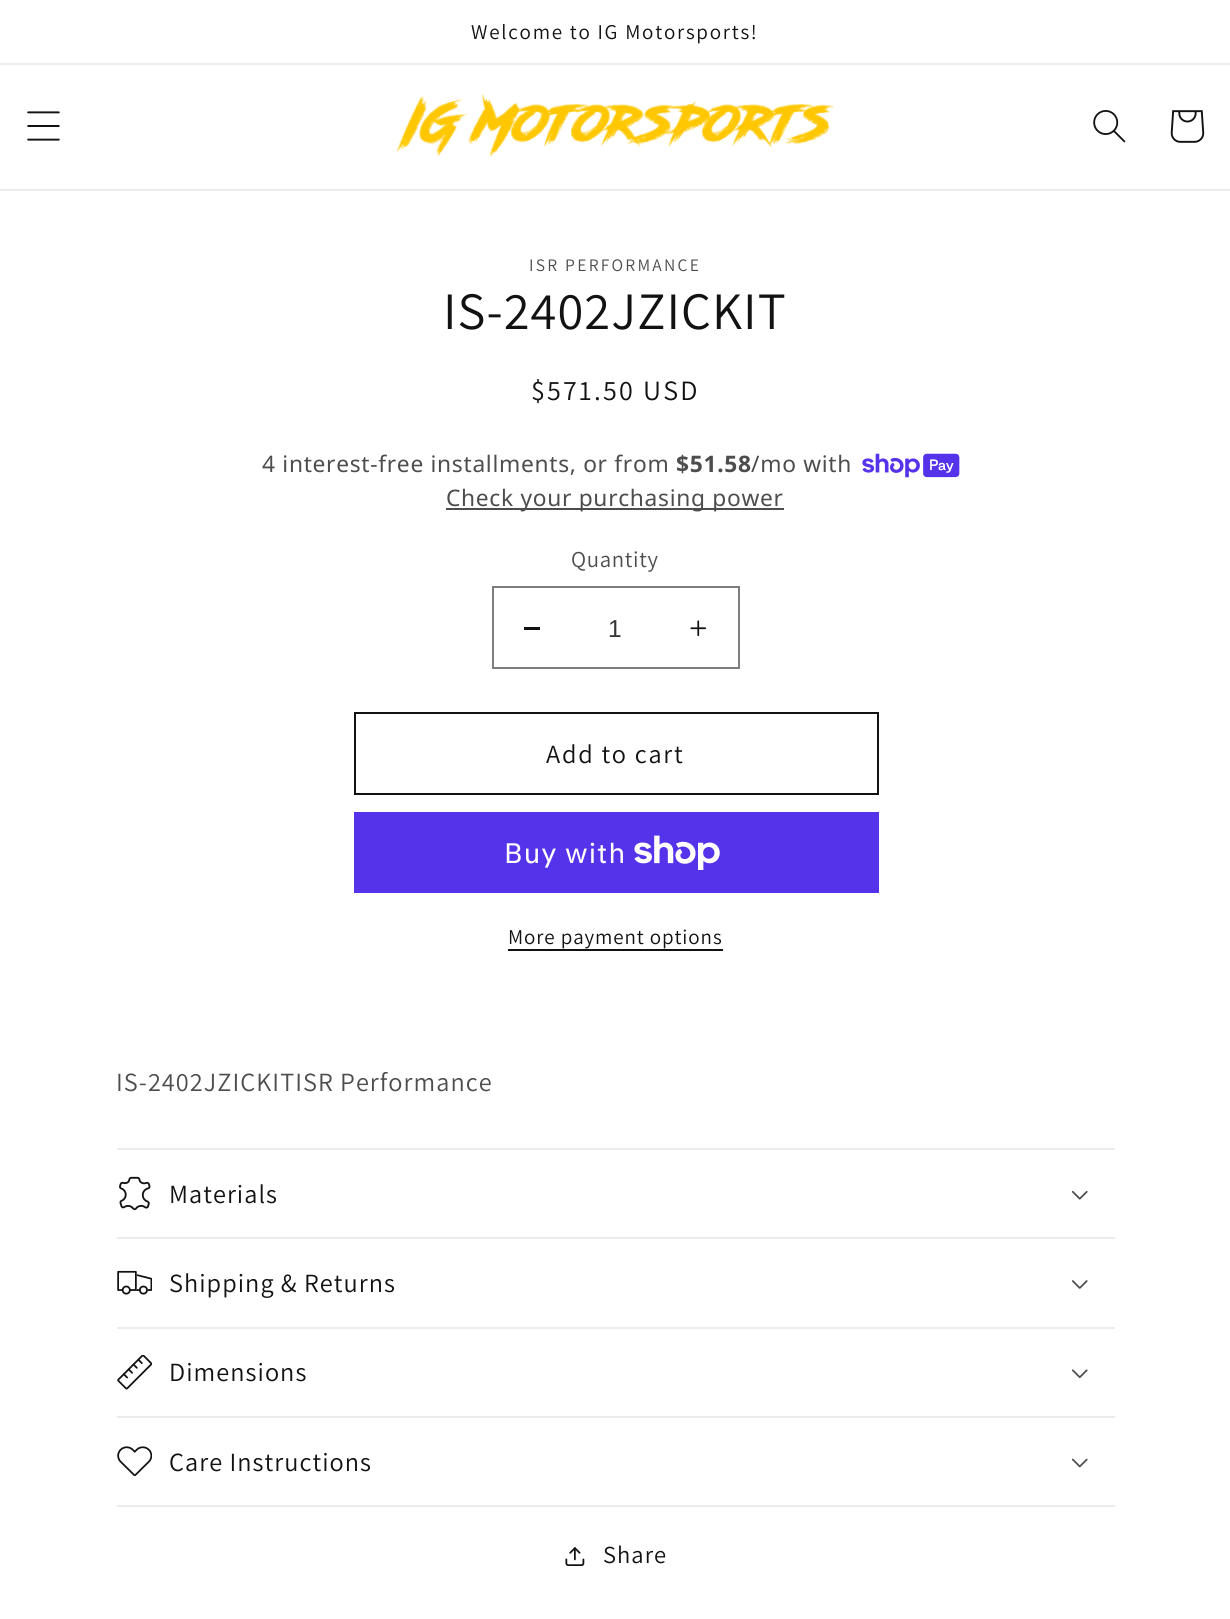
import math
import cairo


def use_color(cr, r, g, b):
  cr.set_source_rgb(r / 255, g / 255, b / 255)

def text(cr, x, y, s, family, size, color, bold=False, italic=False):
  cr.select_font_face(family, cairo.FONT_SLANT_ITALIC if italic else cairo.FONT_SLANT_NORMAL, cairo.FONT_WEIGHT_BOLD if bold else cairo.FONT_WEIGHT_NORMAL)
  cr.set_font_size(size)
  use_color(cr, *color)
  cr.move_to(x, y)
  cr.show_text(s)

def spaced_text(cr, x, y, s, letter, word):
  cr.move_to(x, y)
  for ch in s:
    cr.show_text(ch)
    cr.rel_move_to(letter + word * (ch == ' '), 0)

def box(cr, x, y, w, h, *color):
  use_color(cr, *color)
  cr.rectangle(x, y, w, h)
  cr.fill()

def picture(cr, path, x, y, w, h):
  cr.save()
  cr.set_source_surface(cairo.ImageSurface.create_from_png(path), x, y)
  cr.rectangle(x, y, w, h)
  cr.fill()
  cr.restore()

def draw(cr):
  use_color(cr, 255, 255, 255)
  cr.paint()
  box(cr, 0, 63, 1230, 2, 236, 236, 236)
  box(cr, 0, 189, 1230, 2, 236, 236, 236)
  picture(cr, "img_01.png", 27, 111, 33, 30)
  picture(cr, "img_02.png", 397, 94, 437, 63)
  picture(cr, "img_03.png", 1093, 110, 33, 33)
  picture(cr, "img_04.png", 1170, 110, 35, 33)
  picture(cr, "img_05.png", 862, 453, 98, 25)
  box(cr, 446, 508, 338, 2, 77, 77, 77)
  box(cr, 524, 627, 16, 3, 18, 18, 18)
  picture(cr, "img_06.png", 690, 620, 17, 17)
  cr.rectangle(493, 587, 246, 81)
  use_color(cr, 125, 125, 125)
  cr.stroke()
  cr.rectangle(355, 713, 523, 81)
  use_color(cr, 18, 18, 18)
  cr.stroke()
  box(cr, 354, 812, 525, 81, 84, 51, 235)
  picture(cr, "img_07.png", 634, 835, 86, 35)
  box(cr, 508, 949, 215, 2, 18, 18, 18)
  box(cr, 117, 1148, 998, 2, 236, 236, 236)
  box(cr, 117, 1237, 998, 2, 236, 236, 236)
  picture(cr, "img_08.png", 119, 1176, 32, 35)
  picture(cr, "img_09.png", 1071, 1190, 17, 10)
  box(cr, 117, 1327, 998, 2, 236, 236, 236)
  picture(cr, "img_10.png", 117, 1270, 35, 25)
  picture(cr, "img_11.png", 1072, 1280, 16, 9)
  box(cr, 117, 1416, 998, 2, 236, 236, 236)
  picture(cr, "img_12.png", 117, 1355, 35, 35)
  picture(cr, "img_13.png", 1071, 1369, 17, 10)
  box(cr, 117, 1505, 998, 2, 236, 236, 236)
  picture(cr, "img_14.png", 117, 1446, 35, 31)
  picture(cr, "img_15.png", 1071, 1458, 17, 10)
  picture(cr, "img_16.png", 565, 1547, 20, 19)
  cr.select_font_face("Assistant")
  cr.set_font_size(21)
  use_color(cr, 18, 18, 18)
  spaced_text(cr, 471, 39, "Welcome to IG Motorsports!", 1.75, 0)
  cr.set_font_size(17.5)
  use_color(cr, 77, 77, 77)
  spaced_text(cr, 529, 271, "ISR PERFORMANCE", 2.25, 0)
  cr.set_font_size(52.5)
  use_color(cr, 18, 18, 18)
  spaced_text(cr, 443, 329, "IS-2402JZICKIT", 1.05, 0)
  cr.set_font_size(28)
  spaced_text(cr, 531, 400, "$571.50 USD", 2.25, 0)
  cr.select_font_face("Noto Sans")
  cr.set_font_size(22.75)
  use_color(cr, 77, 77, 77)
  spaced_text(cr, 262, 472, "4 interest-free installments, or from", 0.7, 0)
  cr.select_font_face("Noto Sans", cairo.FONT_SLANT_NORMAL, cairo.FONT_WEIGHT_BOLD)
  spaced_text(cr, 676, 472, "$51.58", 0.7, 0)
  cr.select_font_face("Noto Sans")
  spaced_text(cr, 751, 472, "/mo with", 0.7, 0)
  spaced_text(cr, 446, 506, "Check your purchasing power", 0.7, 0)
  cr.select_font_face("Assistant")
  spaced_text(cr, 571, 567, "Quantity", 0.7, 0)
  text(cr, 608, 637, "1", "Liberation Sans", 24.5, (54, 54, 54))
  cr.select_font_face("Assistant")
  cr.set_font_size(26.25)
  use_color(cr, 18, 18, 18)
  spaced_text(cr, 546, 763, "Add to cart", 1.75, 0)
  cr.select_font_face("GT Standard")
  cr.set_font_size(28)
  use_color(cr, 255, 255, 255)
  spaced_text(cr, 504, 863, "Buy with", 1.05, 0)
  cr.select_font_face("Assistant")
  cr.set_font_size(21)
  use_color(cr, 18, 18, 18)
  spaced_text(cr, 508, 944, "More payment options", 0.9, 0)
  cr.set_font_size(26.25)
  use_color(cr, 77, 77, 77)
  spaced_text(cr, 116, 1091, "IS-2402JZICKITISR Performance", 1.05, 0)
  use_color(cr, 18, 18, 18)
  spaced_text(cr, 169, 1203, "Materials", 1.05, 0)
  spaced_text(cr, 169, 1292, "Shipping & Returns", 1.05, 0)
  spaced_text(cr, 169, 1381, "Dimensions", 1.05, 0)
  spaced_text(cr, 169, 1471, "Care Instructions", 1.05, 0)
  cr.set_font_size(24.5)
  spaced_text(cr, 603, 1563, "Share", 1.05, 0)


surface = cairo.ImageSurface(cairo.FORMAT_RGB24, 1230, 1619)
cr = cairo.Context(surface)
options = cairo.FontOptions()
options.set_hint_metrics(cairo.HINT_METRICS_OFF)
options.set_hint_style(cairo.HINT_STYLE_NONE)
cr.set_font_options(options)
cr.set_miter_limit(4)
draw(cr)
surface.write_to_png("out.png")
